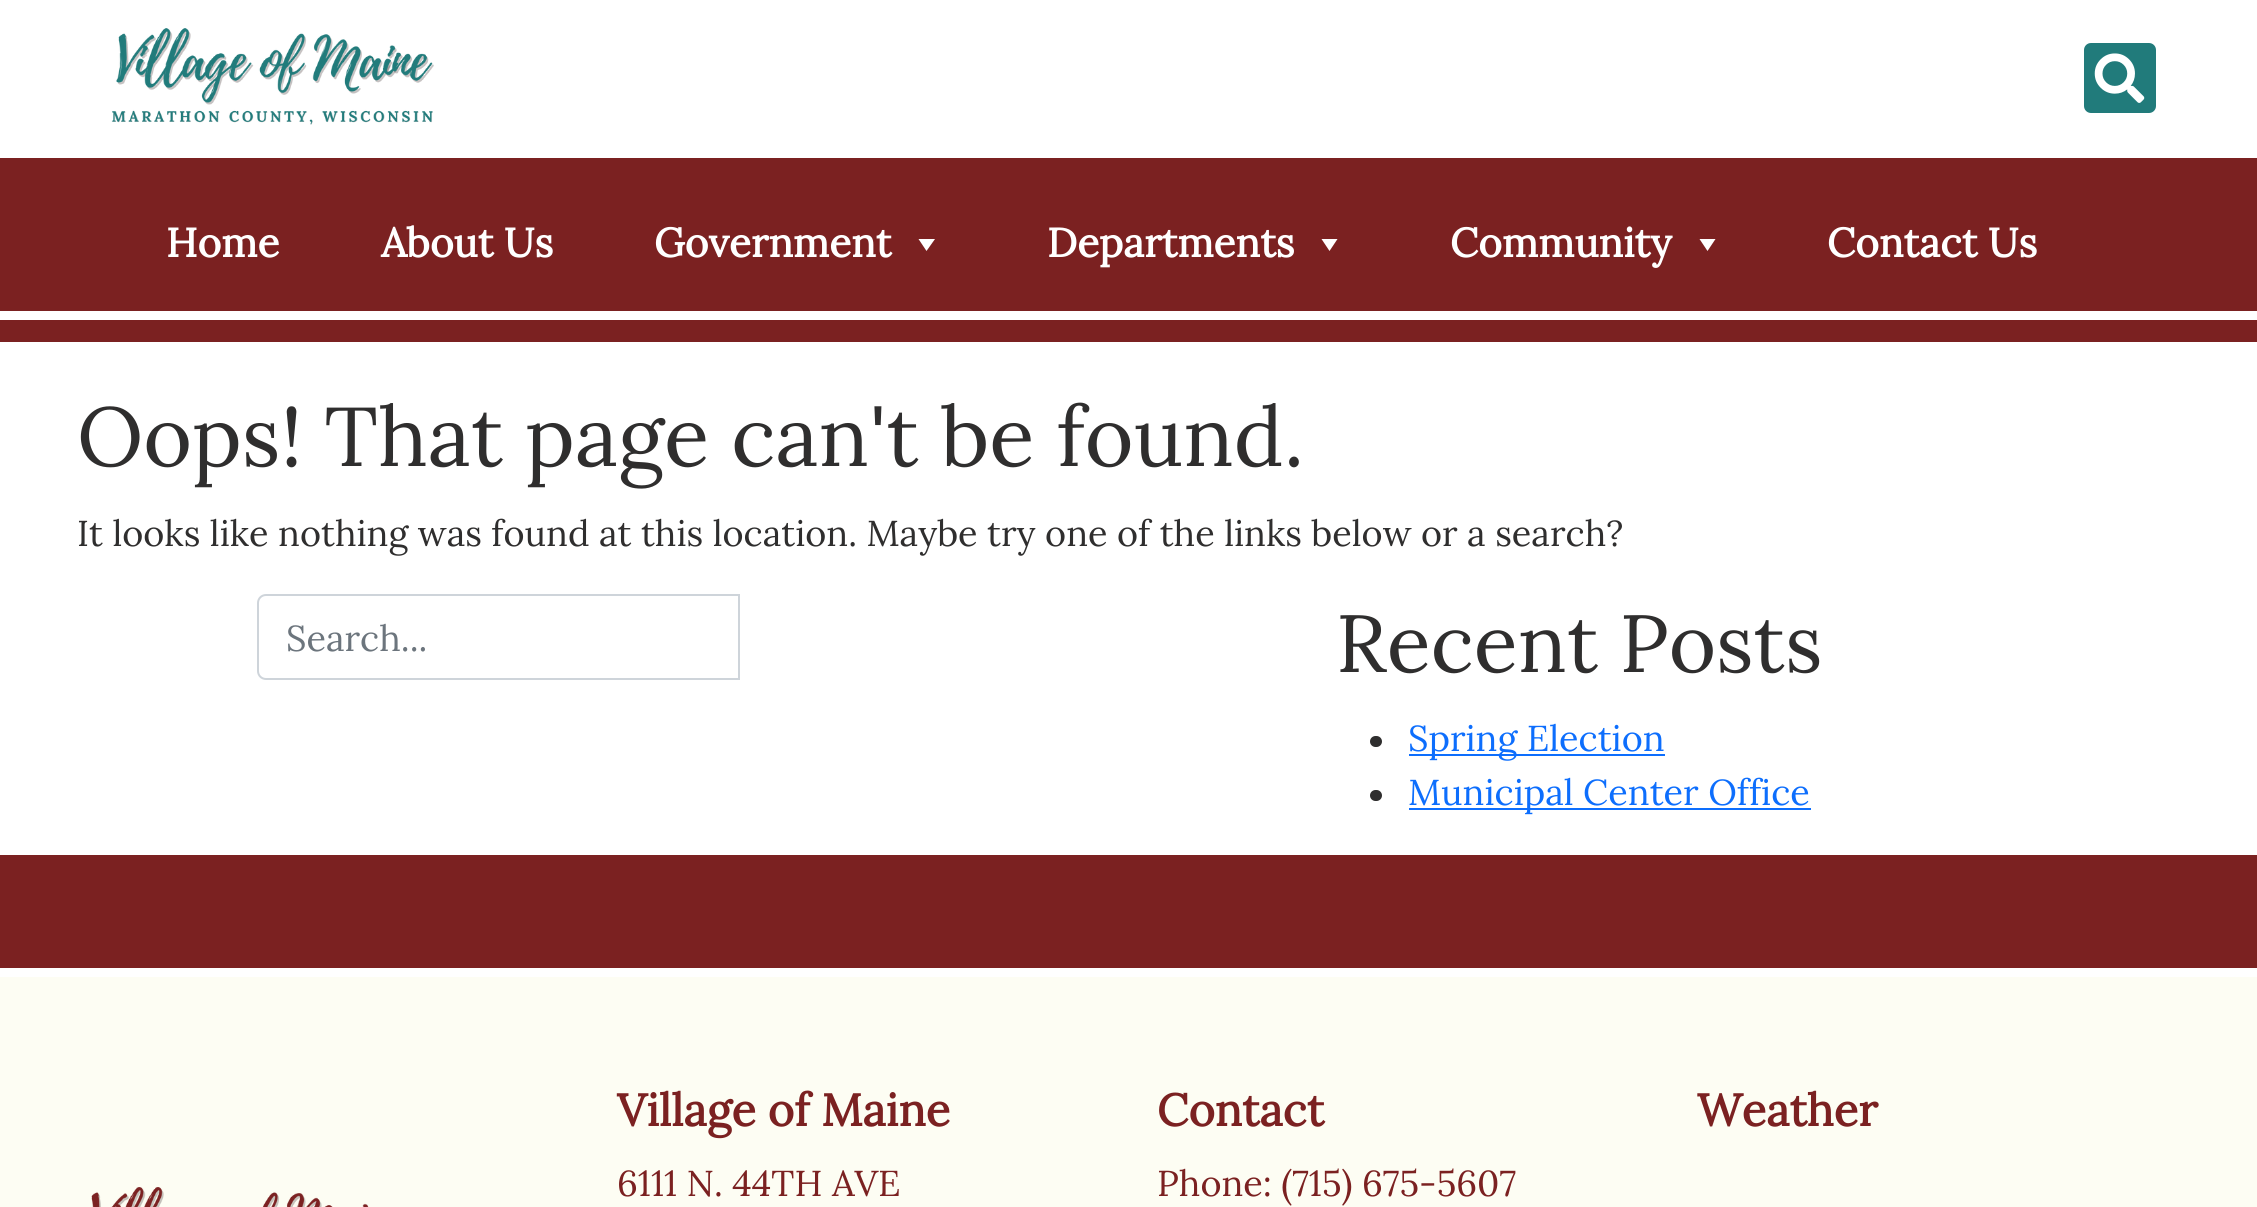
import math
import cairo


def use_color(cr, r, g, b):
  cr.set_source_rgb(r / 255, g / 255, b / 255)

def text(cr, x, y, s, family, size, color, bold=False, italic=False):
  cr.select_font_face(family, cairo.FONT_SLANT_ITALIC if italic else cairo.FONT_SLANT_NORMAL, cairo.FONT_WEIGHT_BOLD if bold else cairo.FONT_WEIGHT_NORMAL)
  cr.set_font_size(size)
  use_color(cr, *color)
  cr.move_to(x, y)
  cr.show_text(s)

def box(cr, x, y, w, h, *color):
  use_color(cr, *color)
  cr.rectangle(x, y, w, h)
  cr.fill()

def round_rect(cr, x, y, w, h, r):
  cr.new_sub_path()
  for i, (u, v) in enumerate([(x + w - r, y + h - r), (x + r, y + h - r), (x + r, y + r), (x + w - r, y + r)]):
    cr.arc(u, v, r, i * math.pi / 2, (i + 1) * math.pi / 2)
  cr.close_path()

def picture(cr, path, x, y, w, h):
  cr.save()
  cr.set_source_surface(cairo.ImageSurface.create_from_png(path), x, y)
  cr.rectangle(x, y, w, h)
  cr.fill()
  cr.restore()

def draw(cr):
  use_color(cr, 255, 255, 255)
  cr.paint()
  box(cr, 0, 158, 2257, 184, 123, 33, 33)
  picture(cr, "img_01.png", 111, 28, 323, 97)
  use_color(cr, 33, 123, 123)
  round_rect(cr, 2084, 43, 72, 70, 7)
  cr.fill()
  picture(cr, "img_02.png", 2094, 53, 51, 50)
  use_color(cr, 255, 255, 255)
  cr.new_path()
  cr.move_to(935, 239)
  cr.line_to(926.5, 251)
  cr.line_to(918.5, 239)
  cr.close_path()
  cr.fill()
  cr.new_path()
  cr.move_to(1337.5, 239)
  cr.line_to(1329.5, 251)
  cr.line_to(1321.5, 239)
  cr.close_path()
  cr.fill()
  cr.new_path()
  cr.move_to(1715.5, 239)
  cr.line_to(1707.5, 251)
  cr.line_to(1699.5, 239)
  cr.close_path()
  cr.fill()
  box(cr, 0, 311, 2257, 9, 255, 255, 255)
  cr.new_path()
  cr.move_to(266, 595)
  cr.line_to(739, 595)
  cr.line_to(739, 679)
  cr.line_to(266, 679)
  cr.curve_to(261.5, 679, 258, 675.5, 258, 671)
  cr.line_to(258, 603)
  cr.curve_to(258, 598.5, 261.5, 595, 266, 595)
  cr.close_path()
  use_color(cr, 206, 212, 218)
  cr.stroke()
  use_color(cr, 47, 46, 46)
  round_rect(cr, 1370, 736, 12, 11, 5.5)
  cr.fill()
  box(cr, 1409, 754, 256, 2, 13, 110, 253)
  use_color(cr, 47, 46, 46)
  round_rect(cr, 1370, 790, 12, 11, 5.5)
  cr.fill()
  box(cr, 1409, 808, 402, 2, 13, 110, 253)
  box(cr, 0, 977, 2257, 230, 253, 253, 243)
  box(cr, 0, 855, 2257, 113, 123, 33, 33)
  picture(cr, "img_03.png", 91, 1187, 278, 20)
  text(cr, 166, 257, "Home", "Lora", 40.5, (255, 255, 255), bold=True)
  text(cr, 381, 257, "About Us", "Lora", 40.5, (255, 255, 255), bold=True)
  text(cr, 654, 257, "Government", "Lora", 40.5, (255, 255, 255), bold=True)
  text(cr, 1047, 257, "Departments", "Lora", 40.5, (255, 255, 255), bold=True)
  text(cr, 1450, 257, "Community", "Lora", 40.5, (255, 255, 255), bold=True)
  text(cr, 1827, 257, "Contact Us", "Lora", 40.5, (255, 255, 255), bold=True)
  text(cr, 77, 466, "Oops! That page can't be found.", "Lora", 83.4, (47, 46, 46))
  text(cr, 77, 546, "It looks like nothing was found at this location. Maybe try one of the links below or a search?", "Lora", 36, (47, 46, 46))
  text(cr, 286, 651, "Search...", "Lora", 36, (108, 117, 125))
  text(cr, 1336, 672, "Recent Posts", "Lora", 81, (47, 46, 46))
  text(cr, 1408, 751, "Spring Election", "Lora", 36, (13, 110, 253))
  text(cr, 1408, 805, "Municipal Center Office", "Lora", 36, (13, 110, 253))
  text(cr, 617, 1126, "Village of Maine", "Lora", 45, (123, 33, 33), bold=True)
  text(cr, 617, 1196, "6111 N. 44TH AVE", "Lora", 36, (123, 33, 33))
  text(cr, 1157, 1126, "Contact", "Lora", 45, (123, 33, 33), bold=True)
  text(cr, 1157, 1196, "Phone: (715) 675-5607", "Lora", 36, (123, 33, 33))
  text(cr, 1697, 1126, "Weather", "Lora", 45, (123, 33, 33), bold=True)


surface = cairo.ImageSurface(cairo.FORMAT_RGB24, 2257, 1207)
cr = cairo.Context(surface)
options = cairo.FontOptions()
options.set_hint_metrics(cairo.HINT_METRICS_OFF)
options.set_hint_style(cairo.HINT_STYLE_NONE)
cr.set_font_options(options)
cr.set_miter_limit(4)
draw(cr)
surface.write_to_png("out.png")
